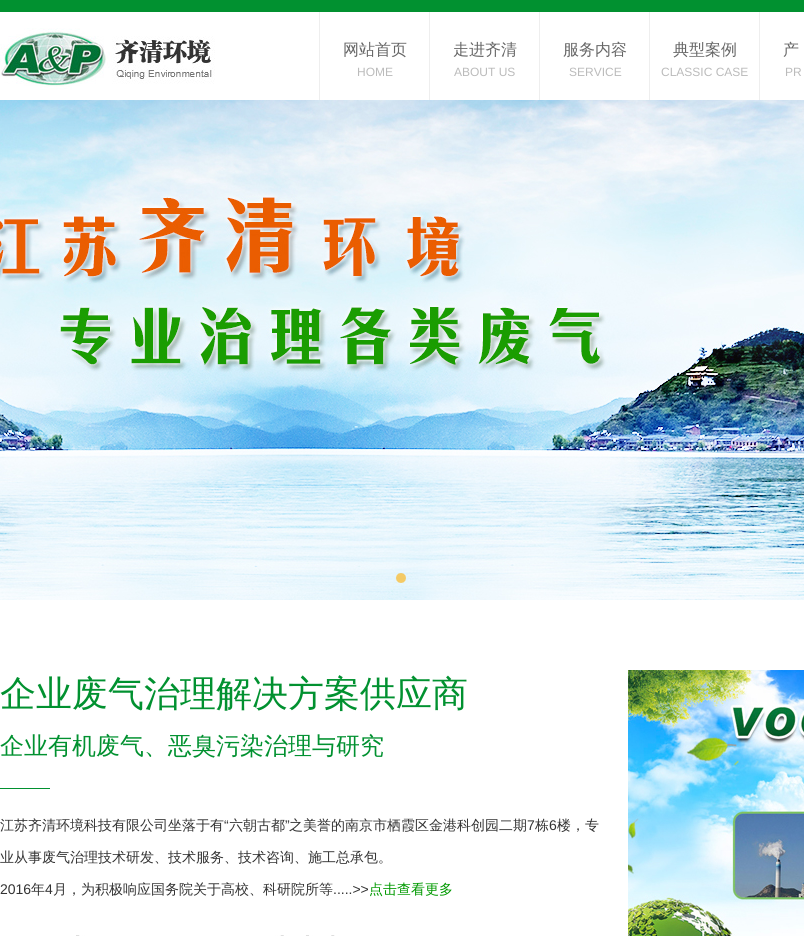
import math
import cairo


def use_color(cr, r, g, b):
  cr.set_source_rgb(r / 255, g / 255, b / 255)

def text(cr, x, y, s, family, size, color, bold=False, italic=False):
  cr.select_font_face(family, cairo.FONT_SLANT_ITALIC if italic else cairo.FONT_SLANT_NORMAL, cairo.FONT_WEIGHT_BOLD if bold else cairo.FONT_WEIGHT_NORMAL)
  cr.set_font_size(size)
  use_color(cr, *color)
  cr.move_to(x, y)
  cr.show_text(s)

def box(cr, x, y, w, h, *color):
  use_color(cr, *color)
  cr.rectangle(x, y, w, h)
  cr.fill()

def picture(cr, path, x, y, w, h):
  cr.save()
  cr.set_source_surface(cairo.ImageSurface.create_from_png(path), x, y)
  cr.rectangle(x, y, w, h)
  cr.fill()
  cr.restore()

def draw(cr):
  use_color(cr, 255, 255, 255)
  cr.paint()
  box(cr, 0, 0, 804, 12, 1, 145, 48)
  picture(cr, "img_01.png", 0, 28, 215, 62)
  box(cr, 319, 12, 1, 88, 238, 238, 238)
  box(cr, 429, 12, 1, 88, 238, 238, 238)
  box(cr, 539, 12, 1, 88, 238, 238, 238)
  box(cr, 649, 12, 1, 88, 238, 238, 238)
  box(cr, 759, 12, 1, 88, 238, 238, 238)
  picture(cr, "img_02.png", 0, 100, 804, 500)
  picture(cr, "img_03.png", 396, 573, 10, 10)
  box(cr, 0, 788, 50, 1, 1, 145, 48)
  picture(cr, "img_04.png", 76, 935, 259, 1)
  picture(cr, "img_05.png", 628, 670, 176, 266)
  text(cr, 343, 55, "网站首页", "WenQuanYi Zen Hei Medium", 16, (102, 102, 102))
  text(cr, 357, 76, "HOME", "Liberation Sans", 12, (187, 187, 187))
  text(cr, 453, 55, "走进齐清", "WenQuanYi Zen Hei Medium", 16, (102, 102, 102))
  text(cr, 454, 76, "ABOUT US", "Liberation Sans", 12, (187, 187, 187))
  text(cr, 563, 55, "服务内容", "WenQuanYi Zen Hei Medium", 16, (102, 102, 102))
  text(cr, 569, 76, "SERVICE", "Liberation Sans", 12, (187, 187, 187))
  text(cr, 673, 55, "典型案例", "WenQuanYi Zen Hei Medium", 16, (102, 102, 102))
  text(cr, 661, 76, "CLASSIC CASE", "Liberation Sans", 12, (187, 187, 187))
  text(cr, 783, 55, "产", "WenQuanYi Zen Hei Medium", 16, (102, 102, 102))
  text(cr, 785, 76, "PR", "Liberation Sans", 12, (187, 187, 187))
  text(cr, 0, 706, "企业废气治理解决方案供应商", "WenQuanYi Zen Hei Medium", 36, (1, 145, 48))
  text(cr, 0, 754, "企业有机废气、恶臭污染治理与研究", "WenQuanYi Zen Hei Medium", 24, (1, 145, 48))
  text(cr, 0, 830, "江苏齐清环境科技有限公司坐落于有", "WenQuanYi Zen Hei Medium", 14, (51, 51, 51))
  text(cr, 224, 830, "“", "Liberation Sans", 14, (51, 51, 51))
  text(cr, 229, 830, "六朝古都", "WenQuanYi Zen Hei Medium", 14, (51, 51, 51))
  text(cr, 285, 830, "”", "Liberation Sans", 14, (51, 51, 51))
  text(cr, 289, 830, "之美誉的南京市栖霞区金港科创园二期", "WenQuanYi Zen Hei Medium", 14, (51, 51, 51))
  text(cr, 527, 830, "7", "Liberation Sans", 14, (51, 51, 51))
  text(cr, 535, 830, "栋", "WenQuanYi Zen Hei Medium", 14, (51, 51, 51))
  text(cr, 549, 830, "6", "Liberation Sans", 14, (51, 51, 51))
  text(cr, 557, 830, "楼，专", "WenQuanYi Zen Hei Medium", 14, (51, 51, 51))
  text(cr, 0, 862, "业从事废气治理技术研发、技术服务、技术咨询、施工总承包。", "WenQuanYi Zen Hei Medium", 14, (51, 51, 51))
  text(cr, 0, 894, "2016", "Liberation Sans", 14, (51, 51, 51))
  text(cr, 31, 894, "年", "WenQuanYi Zen Hei Medium", 14, (51, 51, 51))
  text(cr, 45, 894, "4", "Liberation Sans", 14, (51, 51, 51))
  text(cr, 53, 894, "月，为积极响应国务院关于高校、科研院所等", "WenQuanYi Zen Hei Medium", 14, (51, 51, 51))
  text(cr, 333, 894, ".....>>", "Liberation Sans", 14, (51, 51, 51))
  text(cr, 369, 894, "点击查看更多", "WenQuanYi Zen Hei Medium", 14, (0, 153, 0))


surface = cairo.ImageSurface(cairo.FORMAT_RGB24, 804, 936)
cr = cairo.Context(surface)
options = cairo.FontOptions()
options.set_hint_metrics(cairo.HINT_METRICS_OFF)
options.set_hint_style(cairo.HINT_STYLE_NONE)
cr.set_font_options(options)
cr.set_miter_limit(4)
draw(cr)
surface.write_to_png("out.png")
